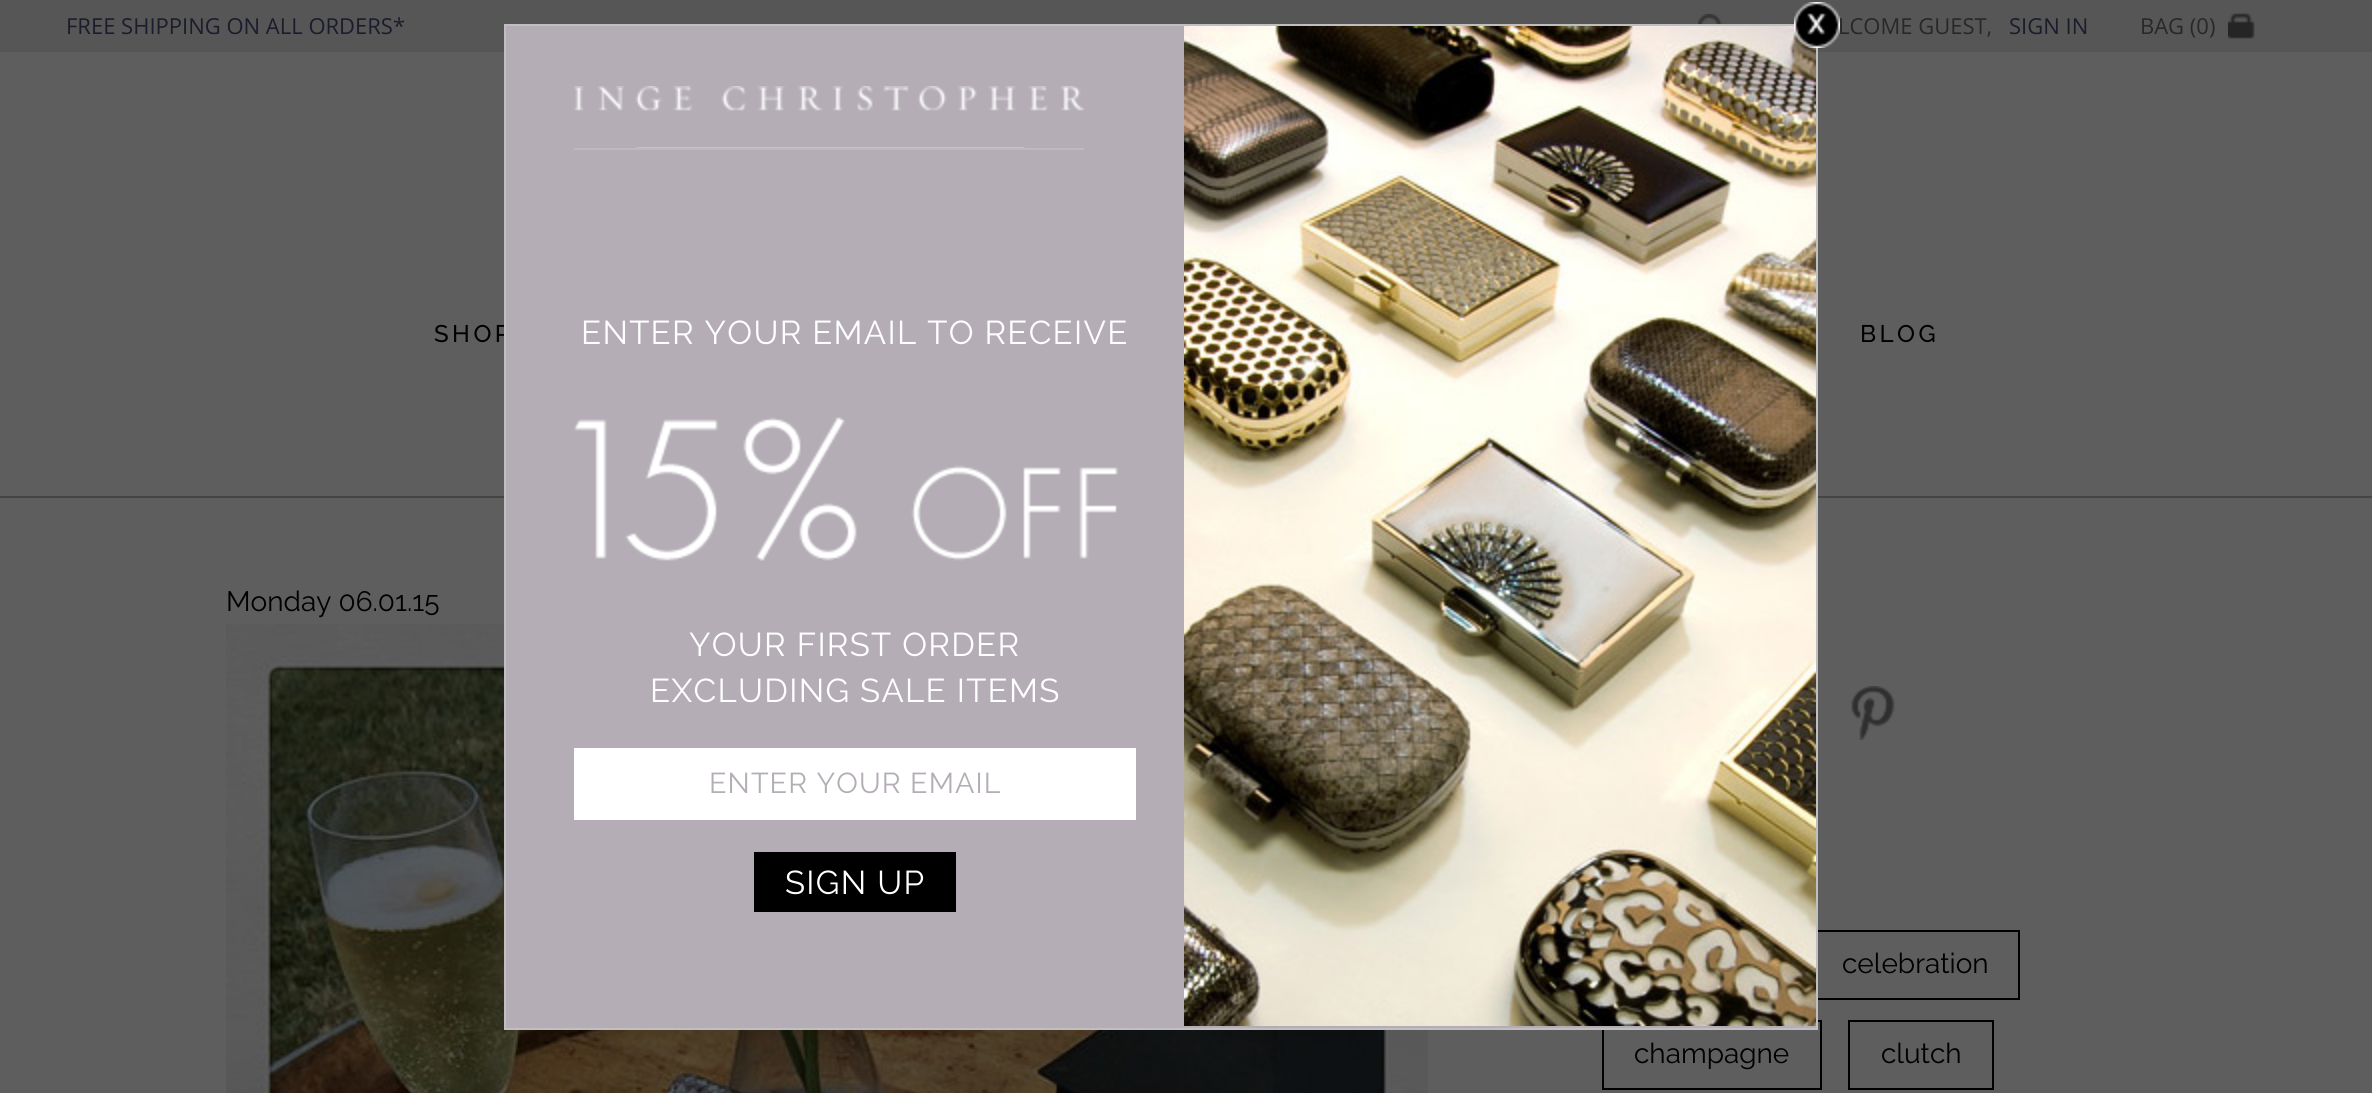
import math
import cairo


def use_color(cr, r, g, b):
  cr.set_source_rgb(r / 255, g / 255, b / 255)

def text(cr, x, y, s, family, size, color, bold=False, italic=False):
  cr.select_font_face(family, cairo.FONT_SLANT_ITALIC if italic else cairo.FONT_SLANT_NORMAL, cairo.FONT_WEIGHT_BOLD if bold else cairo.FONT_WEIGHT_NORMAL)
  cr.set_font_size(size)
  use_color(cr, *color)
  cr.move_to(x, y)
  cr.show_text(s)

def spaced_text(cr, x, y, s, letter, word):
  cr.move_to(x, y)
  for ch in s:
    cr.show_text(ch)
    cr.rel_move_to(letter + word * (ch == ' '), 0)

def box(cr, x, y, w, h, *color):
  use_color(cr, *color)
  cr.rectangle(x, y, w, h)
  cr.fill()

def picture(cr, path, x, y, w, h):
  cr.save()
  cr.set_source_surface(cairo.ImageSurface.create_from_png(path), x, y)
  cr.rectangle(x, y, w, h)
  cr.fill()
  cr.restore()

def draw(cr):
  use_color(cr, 94, 94, 94)
  cr.paint()
  box(cr, 0, 0, 2372, 52, 87, 86, 86)
  picture(cr, "img_01.png", 1698, 14, 25, 10)
  picture(cr, "img_02.png", 2228, 13, 27, 26)
  box(cr, 0, 496, 2372, 2, 69, 69, 68)
  picture(cr, "img_03.png", 226, 624, 1202, 469)
  picture(cr, "img_04.png", 1851, 686, 44, 54)
  cr.rectangle(1811, 931, 208, 68)
  use_color(cr, 0, 0, 0)
  cr.stroke()
  cr.rectangle(1603, 1021, 218, 68)
  cr.stroke()
  cr.rectangle(1849, 1021, 144, 68)
  cr.stroke()
  text(cr, 66, 34, "FREE SHIPPING ON ALL ORDERS*", "Open Sans", 22, (27, 28, 44))
  text(cr, 1838, 34, "LCOME GUEST,", "Open Sans", 22, (40, 40, 40))
  text(cr, 2009, 34, "SIGN IN", "Open Sans", 22, (27, 28, 44))
  text(cr, 2140, 34, "BAG (0)", "Open Sans", 22, (40, 40, 40))
  cr.select_font_face("Raleway Medium")
  cr.set_font_size(24)
  use_color(cr, 0, 0, 0)
  spaced_text(cr, 434, 342, "SHOP", 3.5, 0)
  spaced_text(cr, 1860, 342, "BLOG", 3.5, 0)
  text(cr, 226, 611, "Monday 06.01.15", "Raleway", 28, (0, 0, 0))
  text(cr, 1842, 973, "celebration", "Raleway", 28, (0, 0, 0))
  text(cr, 1634, 1063, "champagne", "Raleway", 28, (0, 0, 0))
  text(cr, 1881, 1063, "clutch", "Raleway", 28, (0, 0, 0))
  use_color(cr, 180, 173, 182)
  cr.rectangle(505, 25, 1312, 1004)
  cr.fill_preserve()
  use_color(cr, 191, 191, 191)
  cr.stroke()
  picture(cr, "img_06.png", 574, 86, 510, 62)
  box(cr, 574, 148, 510, 2, 188, 186, 186)
  cr.set_font_size(33)
  use_color(cr, 255, 255, 255)
  spaced_text(cr, 581, 344, "ENTER YOUR EMAIL TO RECEIVE", 1.3, 0)
  picture(cr, "img_07.png", 574, 417, 544, 144)
  spaced_text(cr, 689, 656, "YOUR FIRST ORDER", 1.3, 0)
  spaced_text(cr, 650, 702, "EXCLUDING SALE ITEMS", 1.3, 0)
  box(cr, 574, 748, 562, 72, 255, 255, 255)
  cr.set_font_size(28.75)
  use_color(cr, 180, 173, 182)
  spaced_text(cr, 709, 793, "ENTER YOUR EMAIL", 1.1, 0)
  box(cr, 754, 852, 202, 60, 0, 0, 0)
  cr.set_font_size(33)
  use_color(cr, 255, 255, 255)
  spaced_text(cr, 785, 894, "SIGN UP", 1.3, 0)
  picture(cr, "img_08.png", 1184, 26, 632, 1000)
  picture(cr, "img_05.png", 1794, 2, 46, 46)


surface = cairo.ImageSurface(cairo.FORMAT_RGB24, 2372, 1093)
cr = cairo.Context(surface)
options = cairo.FontOptions()
options.set_hint_metrics(cairo.HINT_METRICS_OFF)
options.set_hint_style(cairo.HINT_STYLE_NONE)
cr.set_font_options(options)
cr.set_miter_limit(4)
draw(cr)
surface.write_to_png("out.png")
